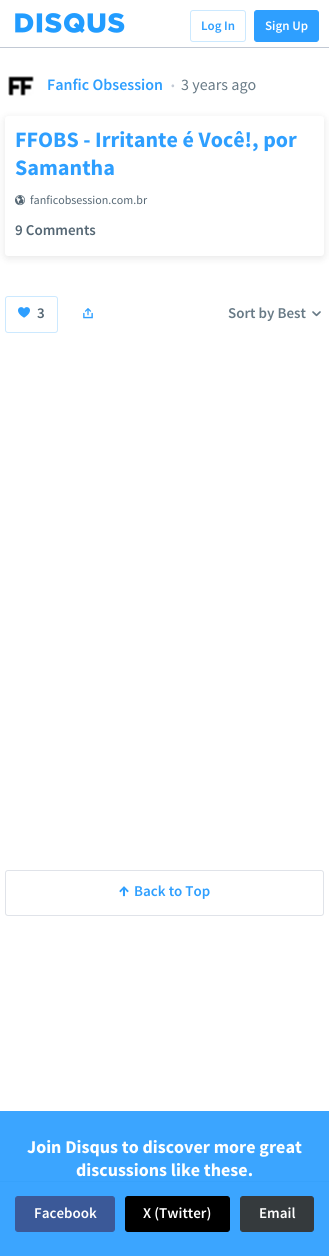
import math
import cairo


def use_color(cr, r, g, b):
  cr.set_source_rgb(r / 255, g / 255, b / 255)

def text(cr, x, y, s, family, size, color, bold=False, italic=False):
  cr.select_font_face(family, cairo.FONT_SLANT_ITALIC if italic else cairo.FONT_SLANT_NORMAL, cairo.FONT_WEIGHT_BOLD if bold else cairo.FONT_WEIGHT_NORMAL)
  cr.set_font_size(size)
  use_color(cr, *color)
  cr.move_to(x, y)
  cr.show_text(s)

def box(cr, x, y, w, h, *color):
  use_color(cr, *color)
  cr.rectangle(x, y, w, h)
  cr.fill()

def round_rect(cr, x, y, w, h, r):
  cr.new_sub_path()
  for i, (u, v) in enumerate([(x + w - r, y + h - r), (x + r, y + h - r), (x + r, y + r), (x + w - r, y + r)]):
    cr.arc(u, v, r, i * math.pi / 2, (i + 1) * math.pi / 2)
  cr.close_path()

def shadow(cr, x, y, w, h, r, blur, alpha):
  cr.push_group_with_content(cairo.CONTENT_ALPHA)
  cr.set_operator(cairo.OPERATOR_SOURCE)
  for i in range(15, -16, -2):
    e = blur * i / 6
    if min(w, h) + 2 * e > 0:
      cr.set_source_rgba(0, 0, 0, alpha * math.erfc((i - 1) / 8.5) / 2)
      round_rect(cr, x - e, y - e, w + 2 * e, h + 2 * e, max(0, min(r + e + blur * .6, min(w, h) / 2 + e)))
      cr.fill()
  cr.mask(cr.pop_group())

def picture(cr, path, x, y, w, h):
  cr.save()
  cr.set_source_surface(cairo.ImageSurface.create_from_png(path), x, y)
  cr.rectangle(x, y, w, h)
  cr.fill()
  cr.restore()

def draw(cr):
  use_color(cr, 255, 255, 255)
  cr.paint()
  box(cr, 0, 47, 329, 1, 194, 201, 212)
  picture(cr, "img_01.png", 15, 13, 110, 20)
  round_rect(cr, 190.5, 10.5, 55, 31, 2.5)
  use_color(cr, 204, 233, 255)
  cr.set_line_width(1)
  cr.stroke()
  use_color(cr, 46, 159, 255)
  round_rect(cr, 254.5, 10.5, 64, 31, 2.5)
  cr.fill_preserve()
  cr.stroke()
  box(cr, 0, 1111, 329, 145, 59, 165, 255)
  picture(cr, "img_02.png", 8, 76, 26, 20)
  use_color(cr, 0, 0, 0)
  shadow(cr, 5, 118, 319, 140, 3, 4, 0.1)
  use_color(cr, 255, 255, 255)
  round_rect(cr, 5, 116, 319, 140, 3)
  cr.fill()
  picture(cr, "img_03.png", 15, 195, 10, 11)
  round_rect(cr, 5.5, 296.5, 52, 36, 2.5)
  use_color(cr, 204, 233, 255)
  cr.stroke()
  picture(cr, "img_04.png", 18, 307, 12, 11)
  picture(cr, "img_05.png", 83, 308, 10, 11)
  picture(cr, "img_06.png", 312, 311, 9, 6)
  use_color(cr, 59, 89, 152)
  round_rect(cr, 15.5, 1196.5, 99, 35, 2.5)
  cr.fill_preserve()
  cr.stroke()
  use_color(cr, 0, 0, 0)
  round_rect(cr, 125.5, 1196.5, 104, 35, 2.5)
  cr.fill_preserve()
  cr.stroke()
  use_color(cr, 53, 58, 61)
  round_rect(cr, 240.5, 1196.5, 73, 35, 2.5)
  cr.fill_preserve()
  cr.stroke()
  round_rect(cr, 5.5, 870.5, 318, 45, 2.5)
  use_color(cr, 224, 227, 233)
  cr.stroke()
  picture(cr, "img_07.png", 119, 886, 10, 11)
  box(cr, 0, 1181, 329, 1, 55, 162, 252)
  text(cr, 201, 30, "Log In", "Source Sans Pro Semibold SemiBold", 13, (46, 159, 255))
  text(cr, 265, 30, "Sign Up", "Source Sans Pro Semibold SemiBold", 13, (255, 255, 255))
  text(cr, 47, 90, "Fanfic Obsession", "Source Sans Pro Semibold SemiBold", 16, (46, 159, 255))
  text(cr, 171, 89, "•", "Source Sans Pro", 12, (194, 201, 212))
  text(cr, 181, 90, "3 years ago", "Source Sans Pro", 16, (104, 122, 134))
  text(cr, 15, 147, "FFOBS - Irritante é Você!, por", "Source Sans Pro", 22, (46, 159, 255), bold=True)
  text(cr, 15, 175, "Samantha", "Source Sans Pro", 22, (46, 159, 255), bold=True)
  text(cr, 30, 204, "fanficobsession.com.br", "Source Sans Pro", 12, (84, 102, 115))
  text(cr, 15, 235, "9 Comments", "Source Sans Pro Semibold SemiBold", 15, (84, 102, 115))
  text(cr, 37, 318, "3", "Source Sans Pro Semibold SemiBold", 15, (84, 102, 115))
  text(cr, 228, 318, "Sort by Best", "Source Sans Pro Semibold SemiBold", 15, (104, 122, 134))
  text(cr, 27, 1153, "Join Disqus to discover more great", "Source Sans Pro", 18, (255, 255, 255), bold=True)
  text(cr, 76, 1176, "discussions like these.", "Source Sans Pro", 18, (255, 255, 255), bold=True)
  text(cr, 34, 1218, "Facebook", "Source Sans Pro Semibold SemiBold", 15, (255, 255, 255))
  text(cr, 143, 1218, "X (Twitter)", "Source Sans Pro Semibold SemiBold", 15, (255, 255, 255))
  text(cr, 259, 1218, "Email", "Source Sans Pro Semibold SemiBold", 15, (255, 255, 255))
  text(cr, 134, 896, "Back to Top", "Source Sans Pro Semibold SemiBold", 15, (46, 159, 255))


surface = cairo.ImageSurface(cairo.FORMAT_RGB24, 329, 1256)
cr = cairo.Context(surface)
options = cairo.FontOptions()
options.set_hint_metrics(cairo.HINT_METRICS_OFF)
options.set_hint_style(cairo.HINT_STYLE_NONE)
cr.set_font_options(options)
cr.set_miter_limit(4)
draw(cr)
surface.write_to_png("out.png")
